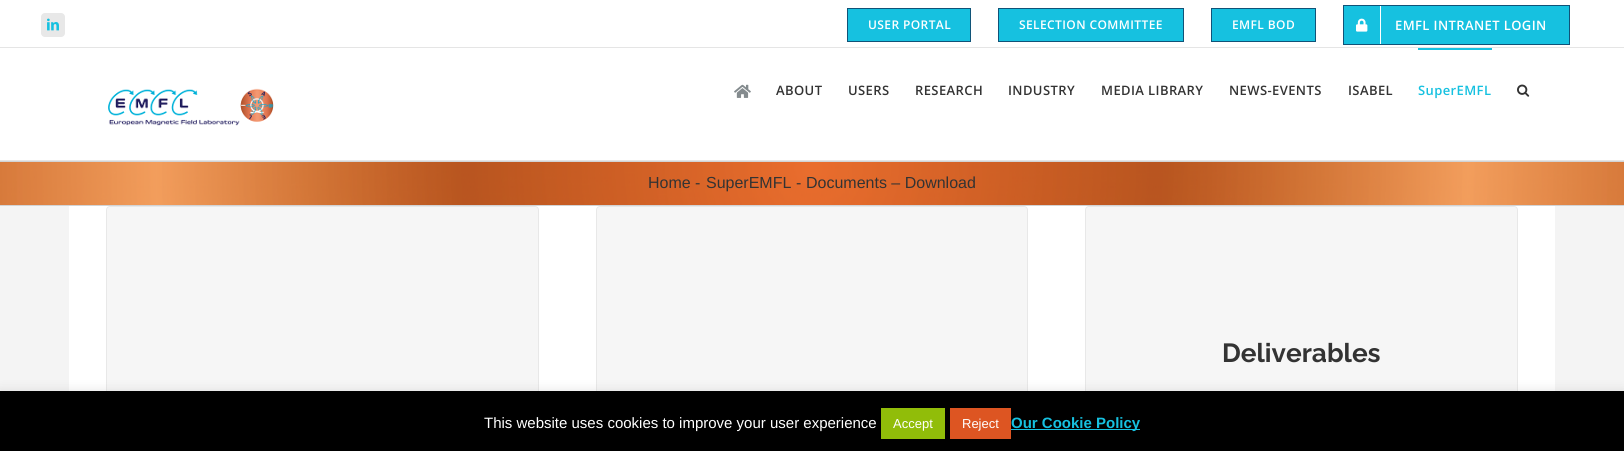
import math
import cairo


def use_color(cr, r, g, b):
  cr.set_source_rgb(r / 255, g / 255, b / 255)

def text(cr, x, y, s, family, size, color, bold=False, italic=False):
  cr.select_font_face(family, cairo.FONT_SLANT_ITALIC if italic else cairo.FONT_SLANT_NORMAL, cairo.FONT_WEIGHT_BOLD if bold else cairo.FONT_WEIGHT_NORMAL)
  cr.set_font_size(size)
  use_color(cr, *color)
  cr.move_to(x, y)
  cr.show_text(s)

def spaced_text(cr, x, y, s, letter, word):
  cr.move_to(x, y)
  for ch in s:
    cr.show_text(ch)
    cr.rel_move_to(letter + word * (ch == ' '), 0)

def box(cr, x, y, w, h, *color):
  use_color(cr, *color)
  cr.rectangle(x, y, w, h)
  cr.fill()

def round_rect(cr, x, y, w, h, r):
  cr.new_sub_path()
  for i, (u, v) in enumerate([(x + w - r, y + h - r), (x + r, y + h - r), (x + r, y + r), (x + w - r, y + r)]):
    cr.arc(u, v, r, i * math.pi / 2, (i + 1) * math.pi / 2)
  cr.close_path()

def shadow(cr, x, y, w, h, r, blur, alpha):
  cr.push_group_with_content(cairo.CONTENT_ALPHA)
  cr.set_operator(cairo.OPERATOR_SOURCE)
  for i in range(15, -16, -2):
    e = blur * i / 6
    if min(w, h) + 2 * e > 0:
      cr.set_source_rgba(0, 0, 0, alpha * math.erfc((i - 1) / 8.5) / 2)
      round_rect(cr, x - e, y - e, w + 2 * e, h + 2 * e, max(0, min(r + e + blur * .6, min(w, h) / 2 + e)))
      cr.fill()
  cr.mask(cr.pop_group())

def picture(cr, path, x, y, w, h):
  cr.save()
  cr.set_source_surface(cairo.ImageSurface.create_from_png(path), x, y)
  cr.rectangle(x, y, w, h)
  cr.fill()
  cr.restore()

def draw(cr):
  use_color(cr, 255, 255, 255)
  cr.paint()
  box(cr, 0, 47, 1624, 1, 229, 229, 229)
  use_color(cr, 232, 232, 232)
  round_rect(cr, 41.5, 13.5, 23, 23, 3.5)
  cr.fill_preserve()
  cr.set_line_width(1)
  cr.stroke()
  picture(cr, "img_01.png", 47, 18, 12, 13)
  use_color(cr, 22, 193, 224)
  cr.rectangle(847.5, 8.5, 123, 33)
  cr.fill_preserve()
  use_color(cr, 16, 83, 120)
  cr.stroke()
  use_color(cr, 22, 193, 224)
  cr.rectangle(998.5, 8.5, 185, 33)
  cr.fill_preserve()
  use_color(cr, 16, 83, 120)
  cr.stroke()
  use_color(cr, 22, 193, 224)
  cr.rectangle(1211.5, 8.5, 104, 33)
  cr.fill_preserve()
  use_color(cr, 16, 83, 120)
  cr.stroke()
  use_color(cr, 22, 193, 224)
  cr.rectangle(1343.5, 5.5, 226, 39)
  cr.fill_preserve()
  use_color(cr, 16, 83, 120)
  cr.stroke()
  box(cr, 1380, 6, 1, 38, 255, 255, 255)
  picture(cr, "img_02.png", 1356, 18, 12, 14)
  box(cr, 0, 160, 1624, 1, 229, 229, 229)
  picture(cr, "img_03.png", 108, 88, 166, 38)
  picture(cr, "img_04.png", 734, 84, 17, 14)
  box(cr, 1418, 48, 74, 2, 22, 193, 224)
  picture(cr, "img_05.png", 1517, 84, 13, 13)
  picture(cr, "img_06.png", 0, 162, 1624, 43)
  box(cr, 0, 161, 1624, 1, 210, 211, 212)
  box(cr, 0, 205, 1624, 1, 210, 211, 212)
  box(cr, 0, 206, 1624, 185, 244, 244, 244)
  box(cr, 69, 206, 1486, 185, 255, 255, 255)
  use_color(cr, 246, 246, 246)
  round_rect(cr, 107, 207, 431, 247, 3)
  cr.fill()
  round_rect(cr, 106.5, 206.5, 432, 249, 3.5)
  use_color(cr, 232, 232, 232)
  cr.stroke()
  use_color(cr, 246, 246, 246)
  round_rect(cr, 597, 207, 430, 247, 3)
  cr.fill()
  round_rect(cr, 596.5, 206.5, 431, 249, 3.5)
  use_color(cr, 232, 232, 232)
  cr.stroke()
  use_color(cr, 246, 246, 246)
  round_rect(cr, 1086, 207, 431, 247, 3)
  cr.fill()
  round_rect(cr, 1085.5, 206.5, 432, 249, 3.5)
  use_color(cr, 232, 232, 232)
  cr.stroke()
  use_color(cr, 172, 171, 171)
  shadow(cr, 0, 390, 1624, 60, 0, 5, 0.3)
  box(cr, 0, 391, 1624, 60, 0, 0, 0)
  box(cr, 881, 408, 64, 31, 145, 189, 9)
  box(cr, 950, 408, 61, 31, 221, 85, 34)
  box(cr, 1011, 429, 129, 1, 22, 193, 224)
  cr.select_font_face("Open Sans SemiBold")
  cr.set_font_size(12)
  use_color(cr, 255, 255, 255)
  spaced_text(cr, 868, 29, "USER PORTAL", 0.4, 0)
  spaced_text(cr, 1019, 29, "SELECTION COMMITTEE", 0.4, 0)
  spaced_text(cr, 1232, 29, "EMFL BOD", 0.4, 0)
  cr.set_font_size(13)
  spaced_text(cr, 1395, 30, "EMFL INTRANET LOGIN", 0.4, 0)
  use_color(cr, 51, 51, 51)
  spaced_text(cr, 776, 95, "ABOUT", 0.4, 0)
  spaced_text(cr, 848, 95, "USERS", 0.4, 0)
  spaced_text(cr, 915, 95, "RESEARCH", 0.4, 0)
  spaced_text(cr, 1008, 95, "INDUSTRY", 0.4, 0)
  spaced_text(cr, 1101, 95, "MEDIA LIBRARY", 0.4, 0)
  spaced_text(cr, 1229, 95, "NEWS-EVENTS", 0.4, 0)
  spaced_text(cr, 1348, 95, "ISABEL", 0.4, 0)
  use_color(cr, 22, 193, 224)
  spaced_text(cr, 1418, 95, "SuperEMFL", 0.4, 0)
  text(cr, 648, 188, "Home", "Liberation Sans", 16, (51, 51, 51))
  text(cr, 695, 188, "-", "Liberation Sans", 16, (51, 51, 51))
  text(cr, 706, 188, "SuperEMFL", "Liberation Sans", 16, (51, 51, 51))
  text(cr, 796, 188, "-", "Liberation Sans", 16, (51, 51, 51))
  text(cr, 806, 188, "Documents – Download", "Liberation Sans", 16, (51, 51, 51))
  text(cr, 1222, 362, "Deliverables", "Raleway", 26.25, (51, 51, 51), bold=True)
  text(cr, 484, 428, "This website uses cookies to improve your user experience", "Liberation Sans", 15, (255, 255, 255))
  text(cr, 893, 428, "Accept", "Liberation Sans", 13, (255, 255, 255))
  text(cr, 962, 428, "Reject", "Liberation Sans", 13, (255, 255, 255))
  text(cr, 1011, 428, "Our Cookie Policy", "Liberation Sans", 15, (22, 193, 224), bold=True)


surface = cairo.ImageSurface(cairo.FORMAT_RGB24, 1624, 451)
cr = cairo.Context(surface)
options = cairo.FontOptions()
options.set_hint_metrics(cairo.HINT_METRICS_OFF)
options.set_hint_style(cairo.HINT_STYLE_NONE)
cr.set_font_options(options)
cr.set_miter_limit(4)
draw(cr)
surface.write_to_png("out.png")
